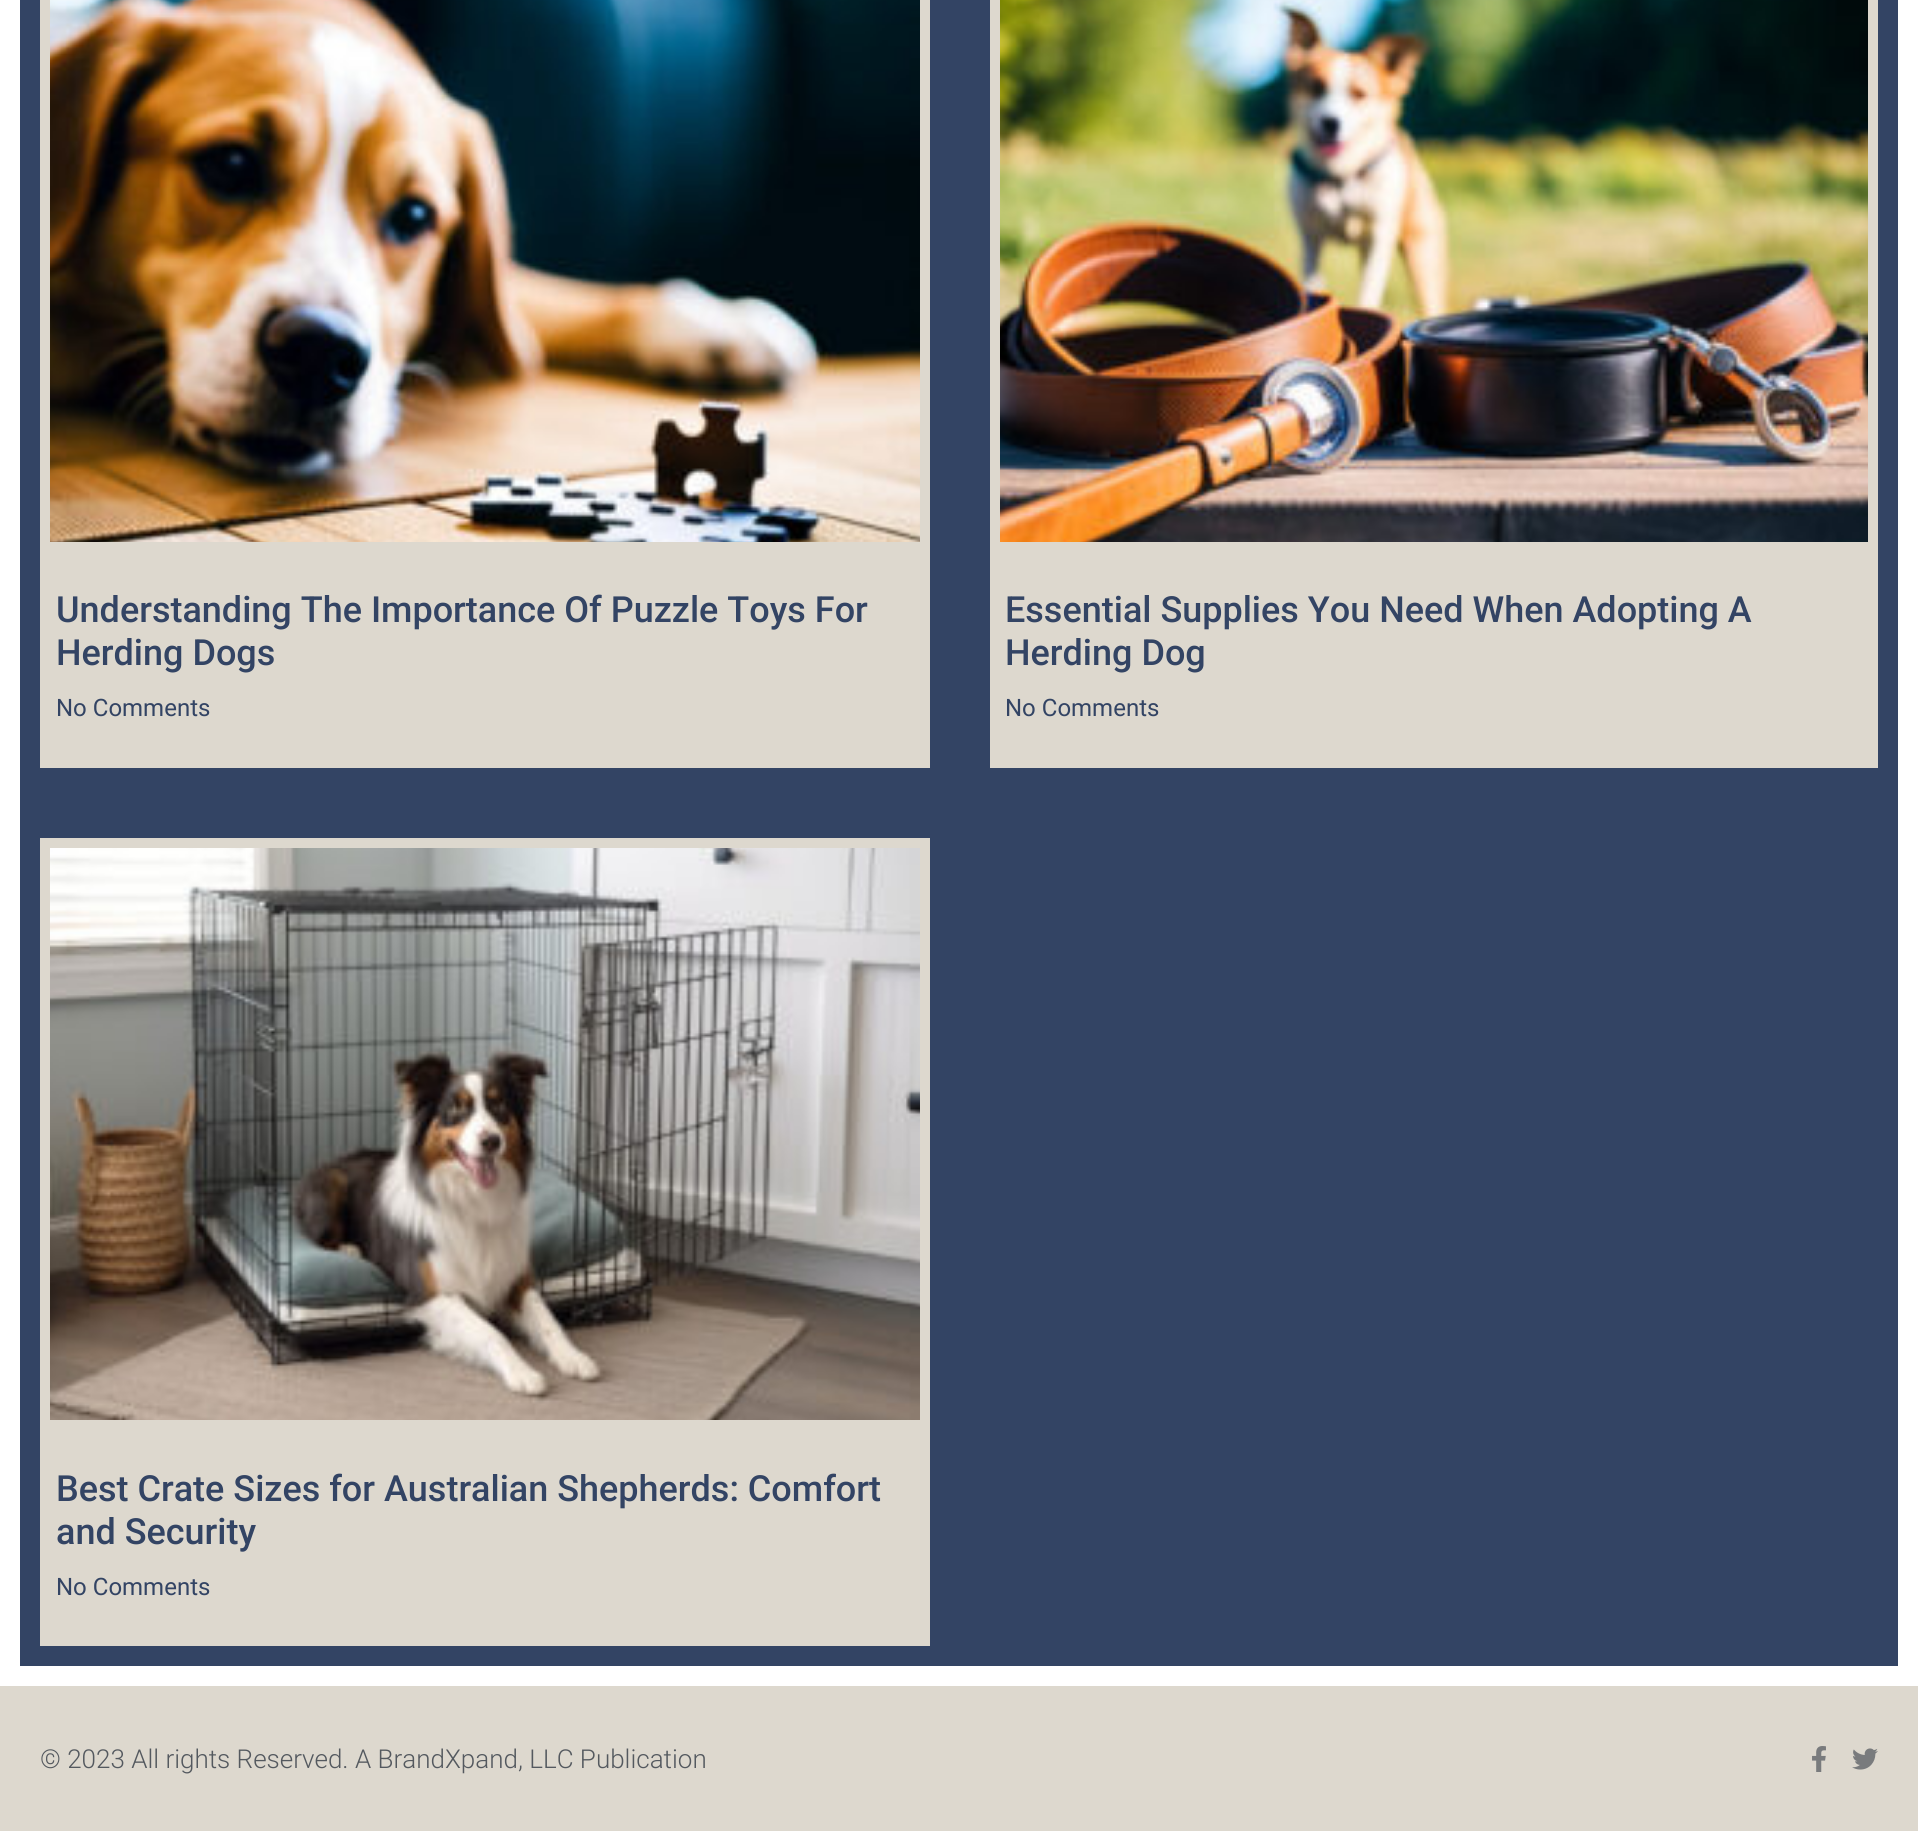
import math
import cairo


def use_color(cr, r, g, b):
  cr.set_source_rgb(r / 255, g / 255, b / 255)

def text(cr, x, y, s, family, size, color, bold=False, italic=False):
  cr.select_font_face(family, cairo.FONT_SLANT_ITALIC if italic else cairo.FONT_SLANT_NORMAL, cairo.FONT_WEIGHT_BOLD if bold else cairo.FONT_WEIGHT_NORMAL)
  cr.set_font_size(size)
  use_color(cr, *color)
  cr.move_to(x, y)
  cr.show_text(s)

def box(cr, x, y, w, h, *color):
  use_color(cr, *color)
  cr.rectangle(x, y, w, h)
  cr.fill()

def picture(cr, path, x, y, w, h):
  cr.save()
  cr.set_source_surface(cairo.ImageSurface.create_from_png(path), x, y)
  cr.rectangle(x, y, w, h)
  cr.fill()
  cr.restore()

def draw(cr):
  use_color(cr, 255, 255, 255)
  cr.paint()
  box(cr, 20, 0, 1878, 1666, 51, 68, 100)
  box(cr, 40, 0, 890, 768, 221, 216, 206)
  picture(cr, "img_01.png", 50, 0, 870, 542)
  box(cr, 990, 0, 888, 768, 221, 216, 206)
  picture(cr, "img_02.png", 1000, 0, 868, 542)
  box(cr, 40, 838, 890, 808, 221, 216, 206)
  picture(cr, "img_03.png", 50, 848, 870, 572)
  box(cr, 0, 1686, 1918, 145, 221, 216, 206)
  picture(cr, "img_04.png", 1812, 1746, 14, 26)
  picture(cr, "img_05.png", 1852, 1748, 26, 22)
  text(cr, 56, 622, "Understanding The Importance Of Puzzle Toys For", "Roboto Medium", 36, (51, 68, 100))
  text(cr, 56, 665, "Herding Dogs", "Roboto Medium", 36, (51, 68, 100))
  text(cr, 56, 716, "No Comments", "Roboto", 24, (51, 68, 100))
  text(cr, 1005, 622, "Essential Supplies You Need When Adopting A", "Roboto Medium", 36, (51, 68, 100))
  text(cr, 1005, 665, "Herding Dog", "Roboto Medium", 36, (51, 68, 100))
  text(cr, 1005, 716, "No Comments", "Roboto", 24, (51, 68, 100))
  text(cr, 56, 1501, "Best Crate Sizes for Australian Shepherds: Comfort", "Roboto Medium", 36, (51, 68, 100))
  text(cr, 56, 1544, "and Security", "Roboto Medium", 36, (51, 68, 100))
  text(cr, 56, 1595, "No Comments", "Roboto", 24, (51, 68, 100))
  text(cr, 40, 1768, "© 2023 All rights Reserved. A BrandXpand, LLC Publication", "Roboto Light", 26, (84, 89, 95))


surface = cairo.ImageSurface(cairo.FORMAT_RGB24, 1918, 1831)
cr = cairo.Context(surface)
options = cairo.FontOptions()
options.set_hint_metrics(cairo.HINT_METRICS_OFF)
options.set_hint_style(cairo.HINT_STYLE_NONE)
cr.set_font_options(options)
cr.set_miter_limit(4)
draw(cr)
surface.write_to_png("out.png")
